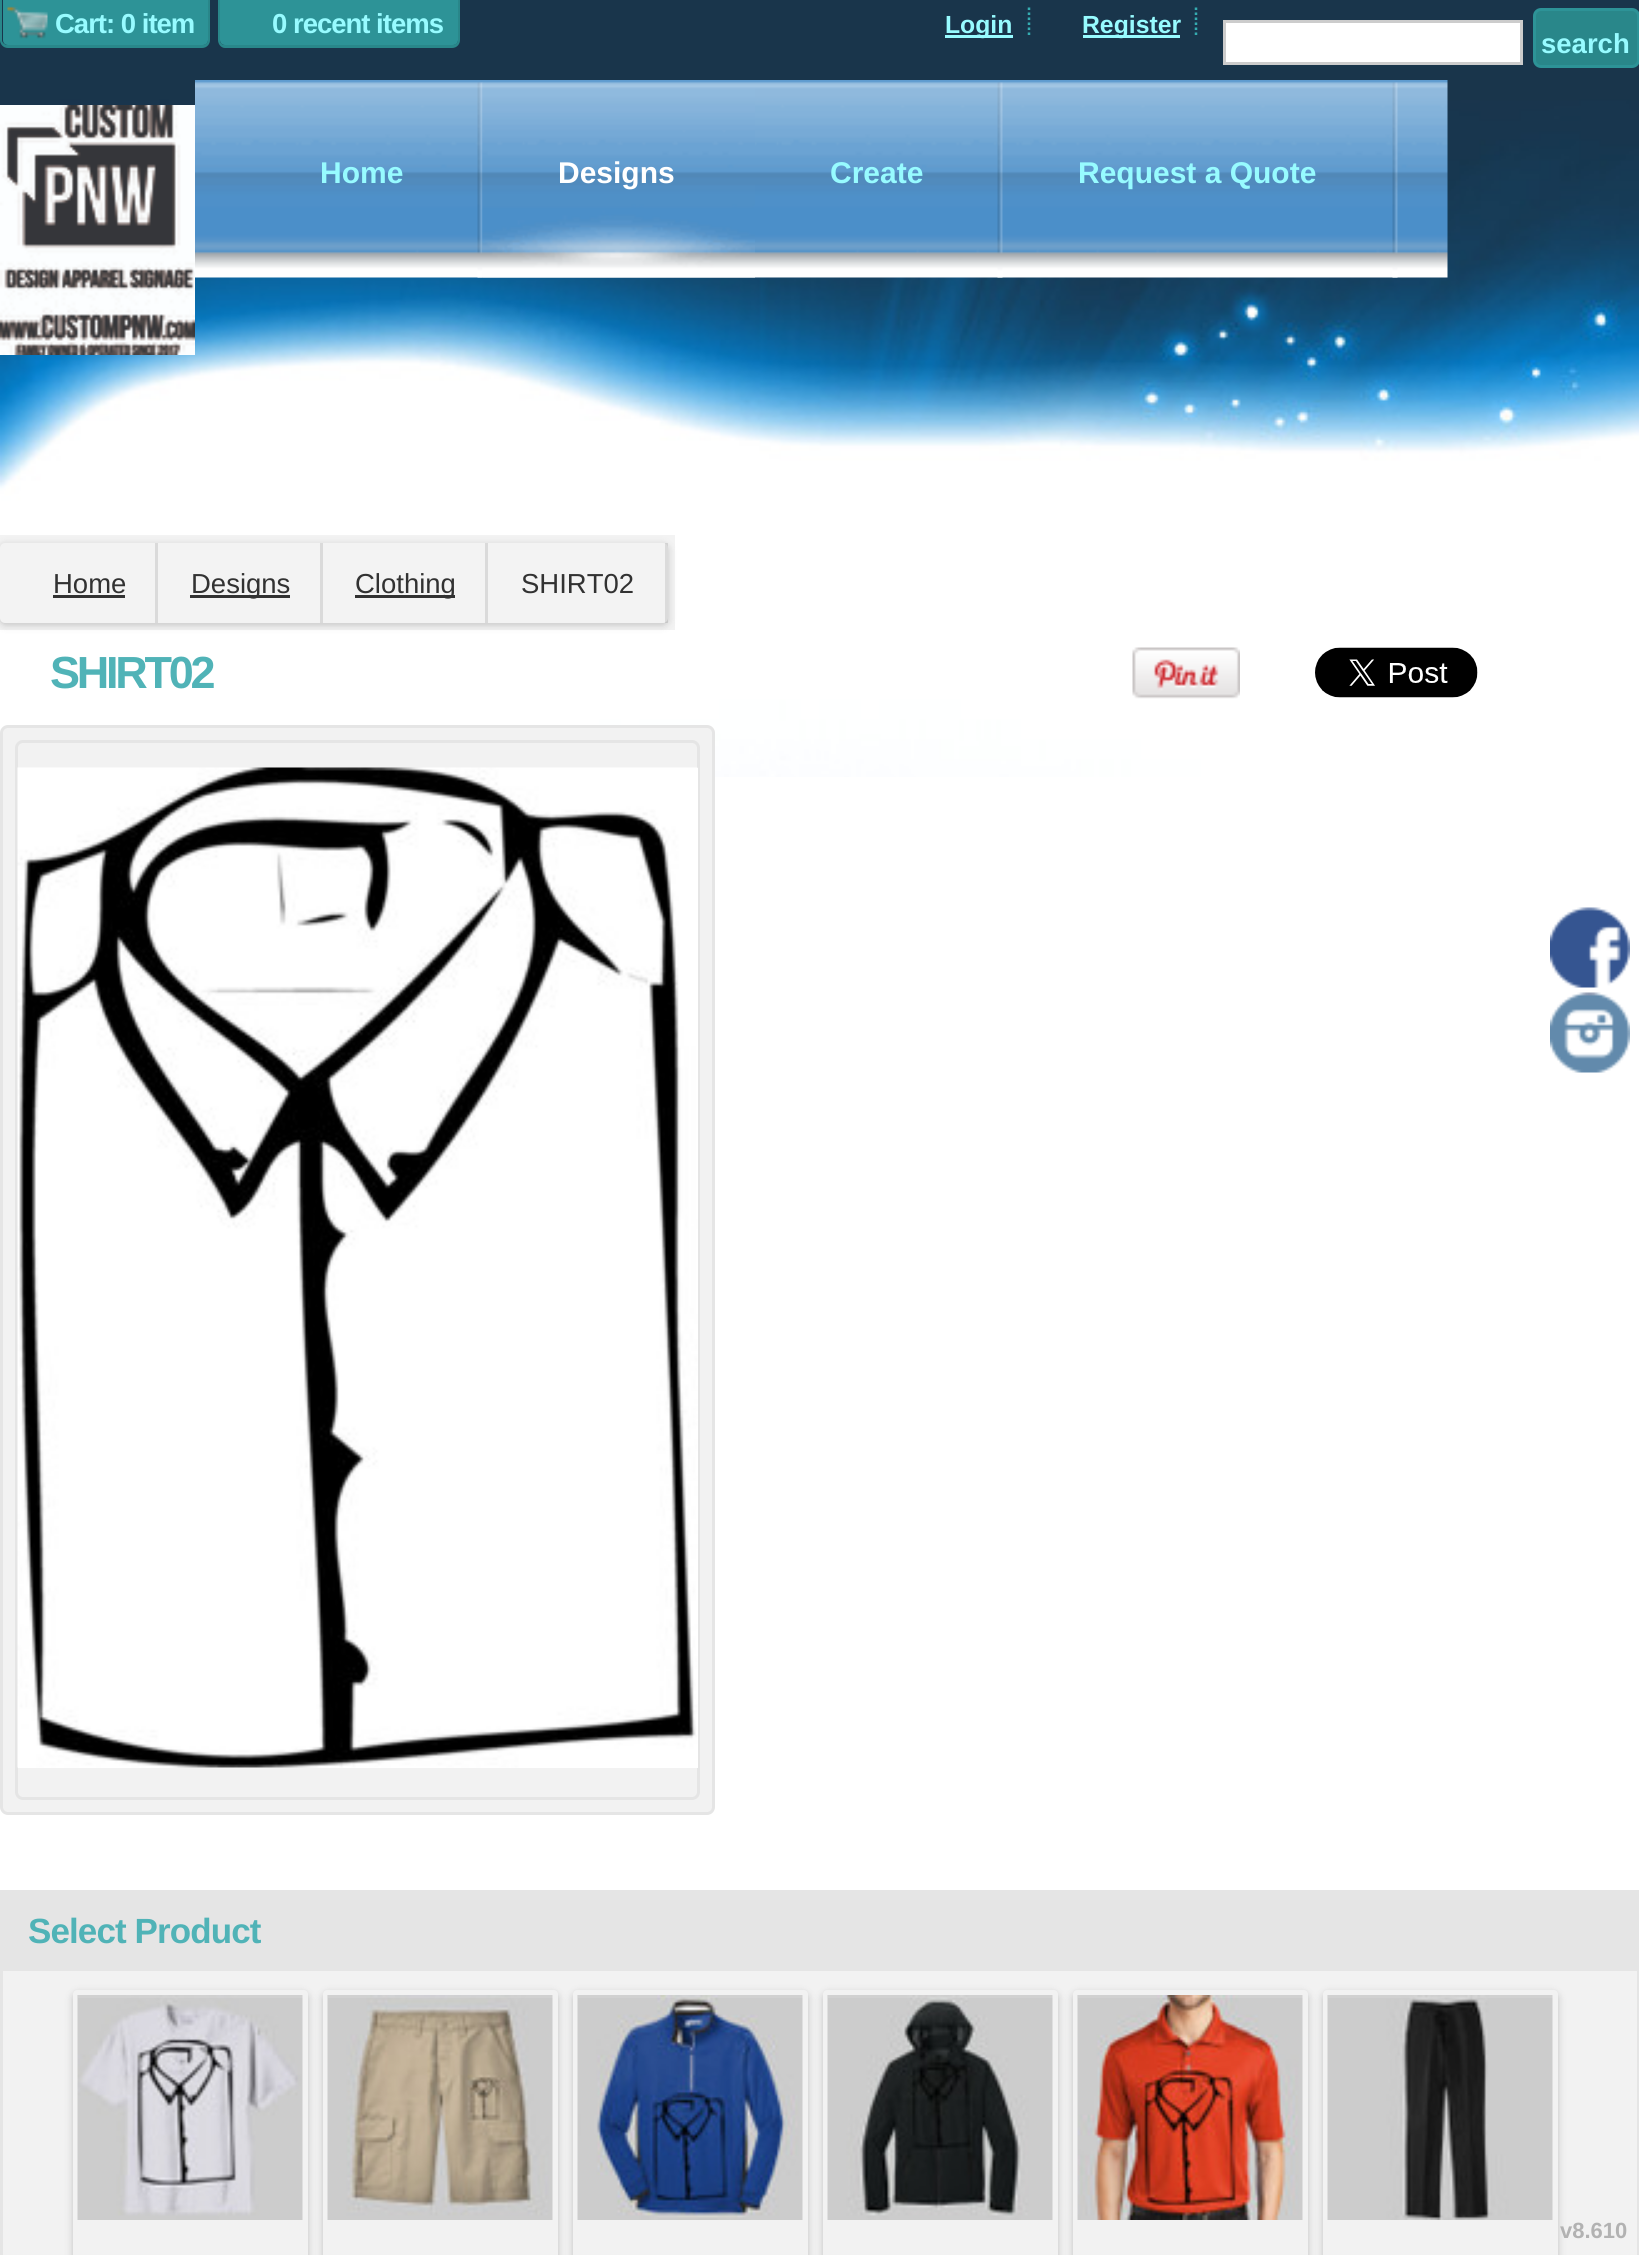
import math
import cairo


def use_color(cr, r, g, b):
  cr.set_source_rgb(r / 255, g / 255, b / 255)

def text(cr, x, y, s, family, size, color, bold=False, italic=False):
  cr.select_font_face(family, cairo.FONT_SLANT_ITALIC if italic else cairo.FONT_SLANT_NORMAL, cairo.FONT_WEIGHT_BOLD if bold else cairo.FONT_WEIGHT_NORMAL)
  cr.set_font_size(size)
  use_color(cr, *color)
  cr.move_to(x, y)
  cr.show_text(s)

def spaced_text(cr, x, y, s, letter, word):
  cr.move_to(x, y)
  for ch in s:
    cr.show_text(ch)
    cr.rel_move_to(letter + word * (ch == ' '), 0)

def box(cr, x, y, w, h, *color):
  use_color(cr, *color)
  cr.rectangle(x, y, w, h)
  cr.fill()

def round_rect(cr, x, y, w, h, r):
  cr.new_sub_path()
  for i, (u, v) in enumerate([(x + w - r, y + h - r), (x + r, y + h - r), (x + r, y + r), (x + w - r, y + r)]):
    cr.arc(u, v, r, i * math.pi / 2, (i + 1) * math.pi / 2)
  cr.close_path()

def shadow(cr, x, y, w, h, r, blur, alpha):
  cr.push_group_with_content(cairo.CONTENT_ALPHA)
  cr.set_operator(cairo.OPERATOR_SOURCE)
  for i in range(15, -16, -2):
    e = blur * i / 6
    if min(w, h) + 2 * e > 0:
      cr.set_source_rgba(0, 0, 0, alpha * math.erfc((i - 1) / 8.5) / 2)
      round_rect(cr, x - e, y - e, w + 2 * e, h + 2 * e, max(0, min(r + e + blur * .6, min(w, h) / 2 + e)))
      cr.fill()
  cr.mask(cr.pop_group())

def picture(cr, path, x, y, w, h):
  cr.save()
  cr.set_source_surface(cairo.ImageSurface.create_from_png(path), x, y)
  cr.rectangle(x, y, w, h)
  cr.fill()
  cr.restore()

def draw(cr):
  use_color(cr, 255, 255, 255)
  cr.paint()
  picture(cr, "img_01.png", 0, 0, 1639, 777)
  use_color(cr, 45, 147, 151)
  cr.new_path()
  cr.move_to(3, 0)
  cr.line_to(208, 0)
  cr.line_to(208, 40)
  cr.curve_to(208, 43, 206, 45, 203, 45)
  cr.line_to(8, 45)
  cr.curve_to(5, 45, 3, 43, 3, 40)
  cr.close_path()
  cr.fill()
  use_color(cr, 41, 135, 138)
  cr.set_fill_rule(cairo.FILL_RULE_EVEN_ODD)
  cr.new_path()
  cr.move_to(0, 0)
  cr.line_to(210, 0)
  cr.line_to(210, 40)
  cr.curve_to(210, 44, 207, 48, 202, 48)
  cr.line_to(8, 48)
  cr.curve_to(3, 48, 0, 44, 0, 40)
  cr.close_path()
  cr.move_to(2, 0)
  cr.line_to(208, 0)
  cr.line_to(208, 40)
  cr.curve_to(208, 43, 205, 45, 202, 45)
  cr.line_to(8, 45)
  cr.curve_to(5, 45, 2, 43, 2, 40)
  cr.close_path()
  cr.fill()
  picture(cr, "img_02.png", 7, 6, 41, 33)
  use_color(cr, 45, 147, 151)
  cr.new_path()
  cr.move_to(220, 0)
  cr.line_to(458, 0)
  cr.line_to(458, 40)
  cr.curve_to(458, 43, 456, 45, 453, 45)
  cr.line_to(225, 45)
  cr.curve_to(222, 45, 220, 43, 220, 40)
  cr.close_path()
  cr.fill()
  use_color(cr, 41, 135, 138)
  cr.new_path()
  cr.move_to(218, 0)
  cr.line_to(460, 0)
  cr.line_to(460, 40)
  cr.curve_to(460, 44, 457, 48, 452, 48)
  cr.line_to(225, 48)
  cr.curve_to(221, 48, 218, 44, 218, 40)
  cr.close_path()
  cr.move_to(220, 0)
  cr.line_to(458, 0)
  cr.line_to(458, 40)
  cr.curve_to(458, 43, 455, 45, 452, 45)
  cr.line_to(225, 45)
  cr.curve_to(222, 45, 220, 43, 220, 40)
  cr.close_path()
  cr.fill()
  cr.new_path()
  cr.move_to(1029, 7.5)
  cr.line_to(1029, 37.5)
  use_color(cr, 53, 172, 177)
  cr.set_line_width(2.5)
  cr.set_dash([2.5, 2.5])
  cr.stroke()
  box(cr, 945, 35, 68, 3, 151, 251, 255)
  cr.new_path()
  cr.move_to(1196, 7.5)
  cr.line_to(1196, 37.5)
  use_color(cr, 53, 172, 177)
  cr.stroke()
  box(cr, 1083, 35, 97, 3, 151, 251, 255)
  use_color(cr, 255, 255, 255)
  cr.rectangle(1224.5, 21.5, 297, 42)
  cr.fill_preserve()
  use_color(cr, 204, 204, 204)
  cr.set_line_width(3)
  cr.set_dash([])
  cr.stroke()
  use_color(cr, 41, 135, 138)
  round_rect(cr, 1534.5, 9.5, 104, 57, 6.5)
  cr.fill_preserve()
  use_color(cr, 45, 147, 151)
  cr.stroke()
  picture(cr, "img_03.png", 0, 105, 195, 250)
  picture(cr, "img_04.png", 195, 80, 1253, 198)
  picture(cr, "img_05.png", 477, 82, 6, 196)
  picture(cr, "img_06.png", 482, 83, 273, 195)
  picture(cr, "img_07.png", 997, 82, 6, 196)
  picture(cr, "img_08.png", 1392, 82, 6, 196)
  use_color(cr, 0, 0, 0)
  shadow(cr, 0, 545, 668, 80, 5, 4, 0.2)
  use_color(cr, 255, 255, 255)
  round_rect(cr, 0, 543, 668, 80, 5)
  cr.fill()
  cr.set_source_rgba(0, 0, 0, 0.05)
  cr.rectangle(0, 535, 675, 95)
  cr.fill()
  box(cr, 155, 543, 3, 80, 218, 218, 218)
  box(cr, 53, 595, 72, 3, 50, 50, 50)
  box(cr, 320, 543, 3, 80, 218, 218, 218)
  box(cr, 190, 595, 100, 3, 50, 50, 50)
  box(cr, 485, 543, 3, 80, 218, 218, 218)
  box(cr, 355, 595, 100, 3, 50, 50, 50)
  cr.set_source_rgba(0, 0, 0, 0.1)
  cr.rectangle(665, 543, 3, 80)
  cr.fill()
  picture(cr, "img_09.png", 1132, 647, 108, 52)
  picture(cr, "img_10.png", 1315, 647, 163, 51)
  use_color(cr, 242, 242, 242)
  round_rect(cr, 1.5, 726.5, 712, 1087, 6.5)
  cr.fill_preserve()
  use_color(cr, 229, 229, 229)
  cr.stroke()
  round_rect(cr, 16.5, 741.5, 682, 1057, 6.5)
  cr.stroke()
  box(cr, 18, 768, 680, 1000, 255, 255, 255)
  picture(cr, "img_11.png", 17, 767, 681, 1001)
  box(cr, 3, 1971, 1634, 284, 242, 242, 242)
  cr.rectangle(1.5, 1891.5, 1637, 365)
  use_color(cr, 229, 229, 229)
  cr.stroke()
  box(cr, 3, 1893, 1634, 75, 229, 229, 229)
  box(cr, 3, 1968, 1635, 3, 229, 229, 229)
  cr.save()
  cr.new_path()
  cr.move_to(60, 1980)
  cr.line_to(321, 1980)
  cr.line_to(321, 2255)
  cr.line_to(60, 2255)
  cr.close_path()
  cr.move_to(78, 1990)
  cr.line_to(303, 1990)
  cr.curve_to(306, 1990, 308, 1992, 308, 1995)
  cr.line_to(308, 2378)
  cr.curve_to(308, 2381, 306, 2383, 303, 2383)
  cr.line_to(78, 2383)
  cr.curve_to(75, 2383, 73, 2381, 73, 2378)
  cr.line_to(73, 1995)
  cr.curve_to(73, 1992, 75, 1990, 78, 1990)
  cr.close_path()
  cr.clip()
  use_color(cr, 0, 0, 0)
  shadow(cr, 73, 1993, 235, 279, 5, 4, 0.2)
  cr.restore()
  picture(cr, "img_12.png", 77, 1995, 226, 225)
  cr.set_source_rgba(1, 1, 1, 0.1)
  cr.rectangle(78, 1995, 225, 3)
  cr.fill()
  cr.save()
  cr.new_path()
  cr.move_to(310, 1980)
  cr.line_to(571, 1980)
  cr.line_to(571, 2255)
  cr.line_to(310, 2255)
  cr.close_path()
  cr.move_to(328, 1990)
  cr.line_to(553, 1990)
  cr.curve_to(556, 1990, 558, 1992, 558, 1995)
  cr.line_to(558, 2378)
  cr.curve_to(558, 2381, 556, 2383, 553, 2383)
  cr.line_to(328, 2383)
  cr.curve_to(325, 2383, 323, 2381, 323, 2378)
  cr.line_to(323, 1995)
  cr.curve_to(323, 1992, 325, 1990, 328, 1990)
  cr.close_path()
  cr.clip()
  use_color(cr, 0, 0, 0)
  shadow(cr, 323, 1993, 235, 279, 5, 4, 0.2)
  cr.restore()
  picture(cr, "img_13.png", 327, 1995, 226, 225)
  cr.rectangle(328, 1995, 225, 3)
  cr.fill()
  cr.save()
  cr.new_path()
  cr.move_to(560, 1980)
  cr.line_to(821, 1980)
  cr.line_to(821, 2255)
  cr.line_to(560, 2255)
  cr.close_path()
  cr.move_to(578, 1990)
  cr.line_to(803, 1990)
  cr.curve_to(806, 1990, 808, 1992, 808, 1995)
  cr.line_to(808, 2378)
  cr.curve_to(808, 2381, 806, 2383, 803, 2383)
  cr.line_to(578, 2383)
  cr.curve_to(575, 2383, 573, 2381, 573, 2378)
  cr.line_to(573, 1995)
  cr.curve_to(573, 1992, 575, 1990, 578, 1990)
  cr.close_path()
  cr.clip()
  use_color(cr, 0, 0, 0)
  shadow(cr, 573, 1993, 235, 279, 5, 4, 0.2)
  cr.restore()
  picture(cr, "img_14.png", 577, 1995, 226, 225)
  cr.rectangle(578, 1995, 225, 3)
  cr.fill()
  cr.save()
  cr.new_path()
  cr.move_to(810, 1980)
  cr.line_to(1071, 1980)
  cr.line_to(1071, 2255)
  cr.line_to(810, 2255)
  cr.close_path()
  cr.move_to(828, 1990)
  cr.line_to(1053, 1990)
  cr.curve_to(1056, 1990, 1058, 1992, 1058, 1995)
  cr.line_to(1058, 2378)
  cr.curve_to(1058, 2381, 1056, 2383, 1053, 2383)
  cr.line_to(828, 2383)
  cr.curve_to(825, 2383, 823, 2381, 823, 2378)
  cr.line_to(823, 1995)
  cr.curve_to(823, 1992, 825, 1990, 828, 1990)
  cr.close_path()
  cr.clip()
  use_color(cr, 0, 0, 0)
  shadow(cr, 823, 1993, 235, 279, 5, 4, 0.2)
  cr.restore()
  picture(cr, "img_15.png", 827, 1995, 226, 225)
  cr.rectangle(828, 1995, 225, 3)
  cr.fill()
  cr.save()
  cr.new_path()
  cr.move_to(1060, 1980)
  cr.line_to(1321, 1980)
  cr.line_to(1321, 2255)
  cr.line_to(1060, 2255)
  cr.close_path()
  cr.move_to(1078, 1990)
  cr.line_to(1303, 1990)
  cr.curve_to(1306, 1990, 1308, 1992, 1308, 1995)
  cr.line_to(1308, 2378)
  cr.curve_to(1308, 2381, 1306, 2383, 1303, 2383)
  cr.line_to(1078, 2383)
  cr.curve_to(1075, 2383, 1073, 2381, 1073, 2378)
  cr.line_to(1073, 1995)
  cr.curve_to(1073, 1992, 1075, 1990, 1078, 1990)
  cr.close_path()
  cr.clip()
  use_color(cr, 0, 0, 0)
  shadow(cr, 1073, 1993, 235, 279, 5, 4, 0.2)
  cr.restore()
  picture(cr, "img_16.png", 1077, 1995, 226, 225)
  cr.rectangle(1078, 1995, 225, 3)
  cr.fill()
  cr.save()
  cr.new_path()
  cr.move_to(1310, 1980)
  cr.line_to(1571, 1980)
  cr.line_to(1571, 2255)
  cr.line_to(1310, 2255)
  cr.close_path()
  cr.move_to(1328, 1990)
  cr.line_to(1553, 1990)
  cr.curve_to(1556, 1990, 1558, 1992, 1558, 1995)
  cr.line_to(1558, 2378)
  cr.curve_to(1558, 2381, 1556, 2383, 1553, 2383)
  cr.line_to(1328, 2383)
  cr.curve_to(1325, 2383, 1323, 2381, 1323, 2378)
  cr.line_to(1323, 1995)
  cr.curve_to(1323, 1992, 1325, 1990, 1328, 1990)
  cr.close_path()
  cr.clip()
  use_color(cr, 0, 0, 0)
  shadow(cr, 1323, 1993, 235, 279, 5, 4, 0.2)
  cr.restore()
  picture(cr, "img_17.png", 1327, 1995, 226, 225)
  cr.rectangle(1328, 1995, 225, 3)
  cr.fill()
  picture(cr, "img_18.png", 1550, 907, 80, 81)
  picture(cr, "img_19.png", 1550, 992, 80, 81)
  cr.select_font_face("Liberation Sans", cairo.FONT_SLANT_NORMAL, cairo.FONT_WEIGHT_BOLD)
  cr.set_font_size(27.5)
  use_color(cr, 151, 251, 255)
  spaced_text(cr, 55, 33, "Cart: 0 item", -1, 0)
  spaced_text(cr, 272, 33, "0 recent items", -1, 0)
  text(cr, 945, 33, "Login", "Liberation Sans", 24.75, (151, 251, 255), bold=True)
  text(cr, 1082, 33, "Register", "Liberation Sans", 24.75, (151, 251, 255), bold=True)
  text(cr, 1541, 53, "search", "Liberation Sans", 27.5, (151, 251, 255), bold=True)
  text(cr, 320, 183, "Home", "Liberation Sans", 30, (151, 251, 255), bold=True)
  text(cr, 558, 183, "Designs", "Liberation Sans", 30, (255, 255, 255), bold=True)
  text(cr, 830, 183, "Create", "Liberation Sans", 30, (151, 251, 255), bold=True)
  text(cr, 1078, 183, "Request a Quote", "Liberation Sans", 30, (151, 251, 255), bold=True)
  text(cr, 53, 593, "Home", "Liberation Sans", 27.5, (50, 50, 50))
  text(cr, 191, 593, "Designs", "Liberation Sans", 27.5, (50, 50, 50))
  text(cr, 355, 593, "Clothing", "Liberation Sans", 27.5, (50, 50, 50))
  text(cr, 521, 593, "SHIRT02", "Liberation Sans", 27.5, (50, 50, 50))
  cr.select_font_face("Liberation Sans", cairo.FONT_SLANT_NORMAL, cairo.FONT_WEIGHT_BOLD)
  cr.set_font_size(45)
  use_color(cr, 80, 179, 183)
  spaced_text(cr, 50, 688, "SHIRT02", -3.25, 0)
  cr.set_font_size(35)
  spaced_text(cr, 28, 1943, "Select Product", -0.9, 0)
  text(cr, 1560, 2238, "v8.610", "Liberation Sans", 22, (178, 178, 178), bold=True)


surface = cairo.ImageSurface(cairo.FORMAT_RGB24, 1639, 2255)
cr = cairo.Context(surface)
options = cairo.FontOptions()
options.set_hint_metrics(cairo.HINT_METRICS_OFF)
options.set_hint_style(cairo.HINT_STYLE_NONE)
cr.set_font_options(options)
cr.set_miter_limit(4)
draw(cr)
surface.write_to_png("out.png")
